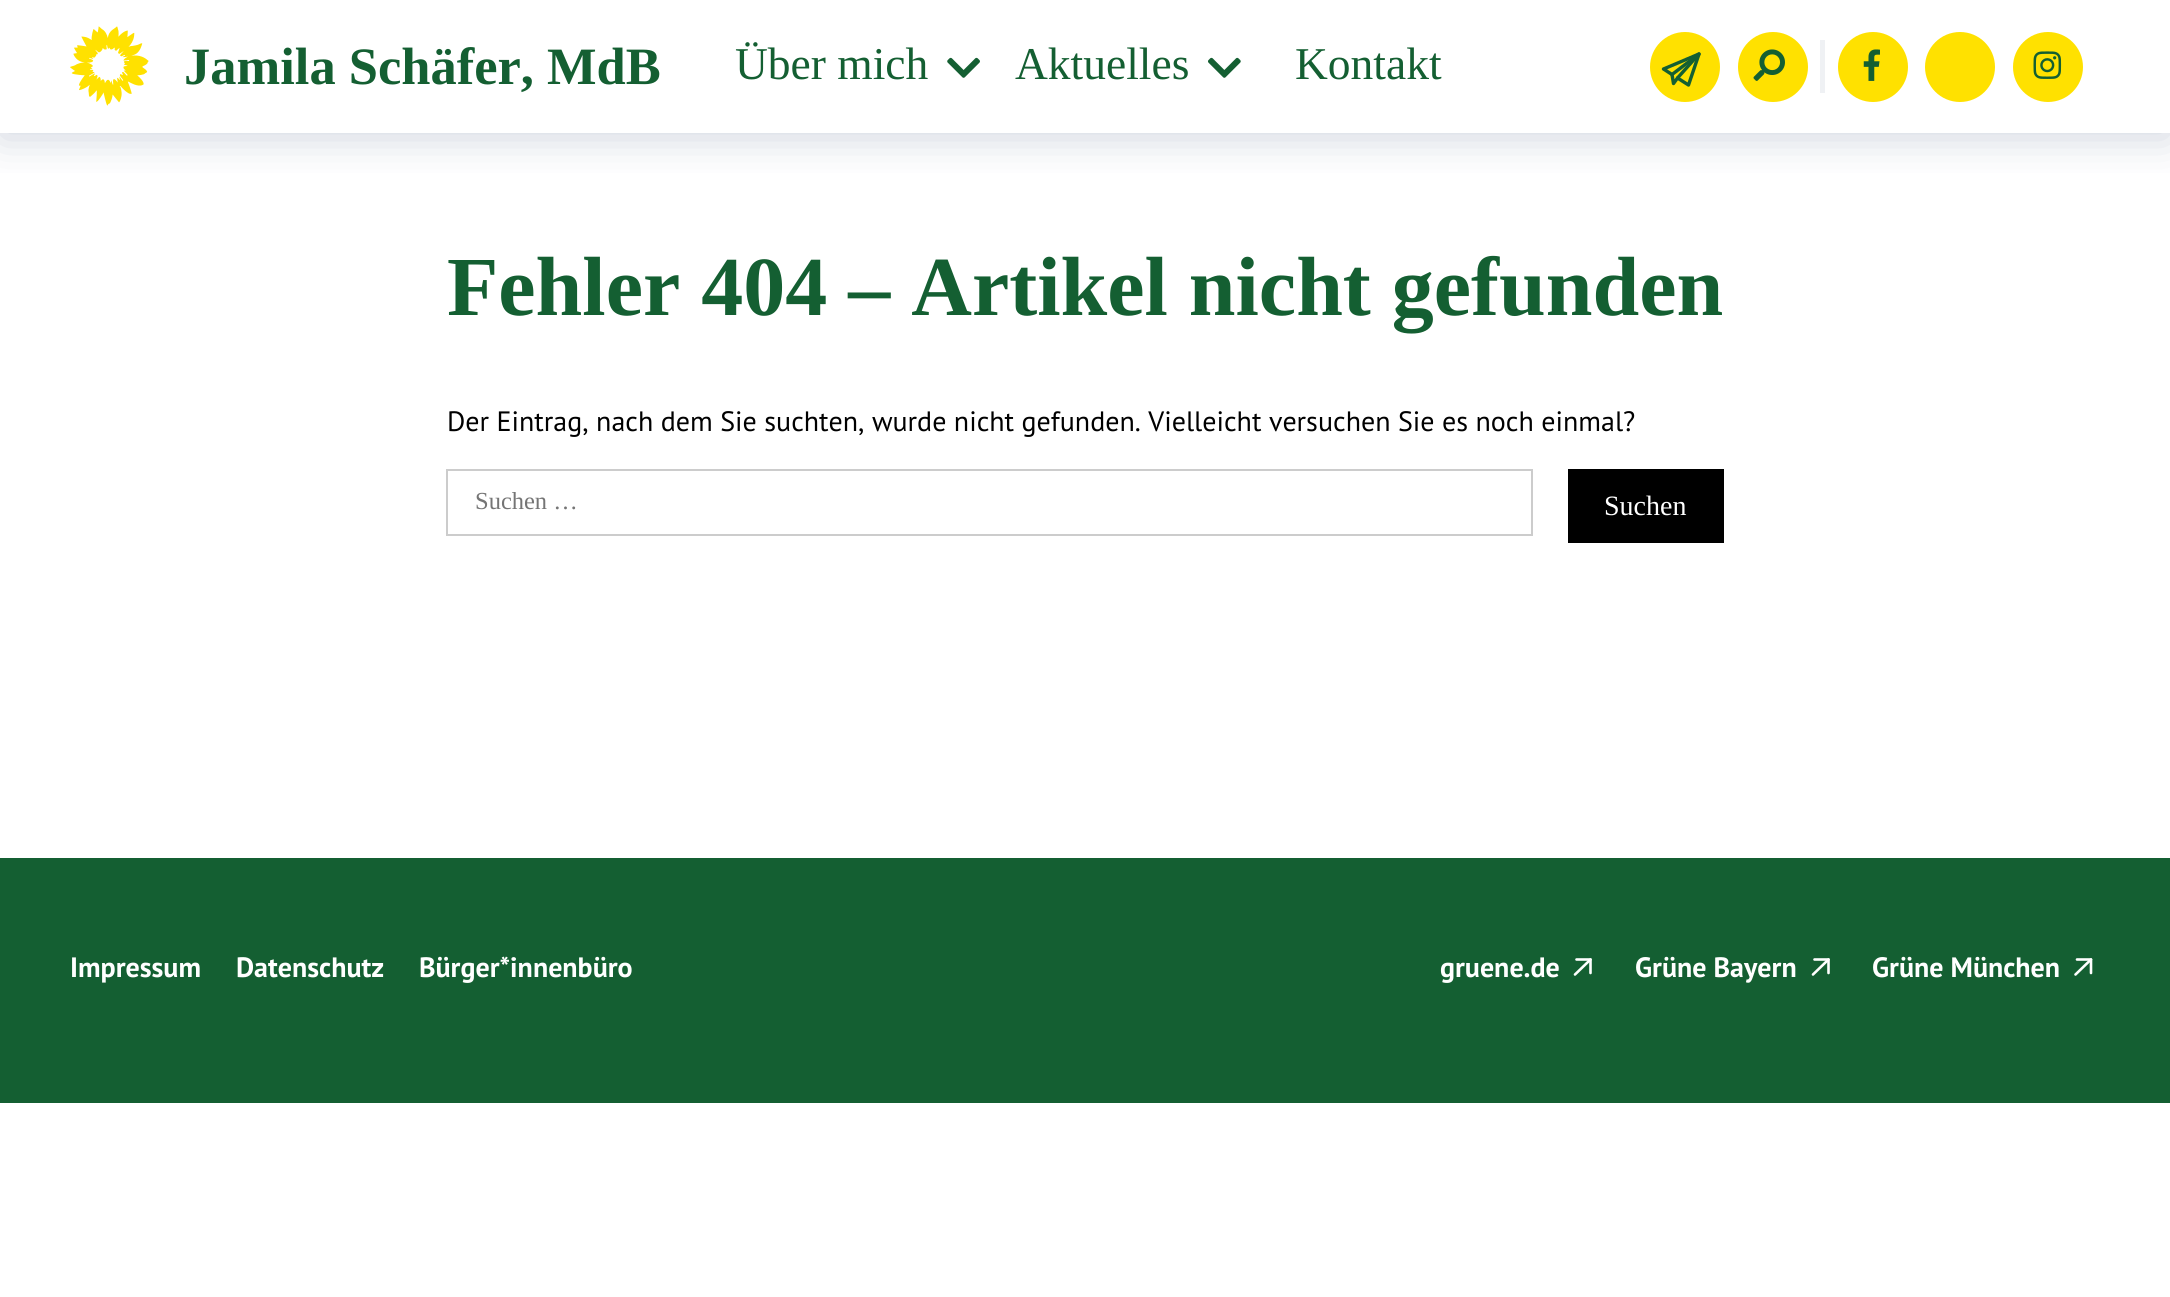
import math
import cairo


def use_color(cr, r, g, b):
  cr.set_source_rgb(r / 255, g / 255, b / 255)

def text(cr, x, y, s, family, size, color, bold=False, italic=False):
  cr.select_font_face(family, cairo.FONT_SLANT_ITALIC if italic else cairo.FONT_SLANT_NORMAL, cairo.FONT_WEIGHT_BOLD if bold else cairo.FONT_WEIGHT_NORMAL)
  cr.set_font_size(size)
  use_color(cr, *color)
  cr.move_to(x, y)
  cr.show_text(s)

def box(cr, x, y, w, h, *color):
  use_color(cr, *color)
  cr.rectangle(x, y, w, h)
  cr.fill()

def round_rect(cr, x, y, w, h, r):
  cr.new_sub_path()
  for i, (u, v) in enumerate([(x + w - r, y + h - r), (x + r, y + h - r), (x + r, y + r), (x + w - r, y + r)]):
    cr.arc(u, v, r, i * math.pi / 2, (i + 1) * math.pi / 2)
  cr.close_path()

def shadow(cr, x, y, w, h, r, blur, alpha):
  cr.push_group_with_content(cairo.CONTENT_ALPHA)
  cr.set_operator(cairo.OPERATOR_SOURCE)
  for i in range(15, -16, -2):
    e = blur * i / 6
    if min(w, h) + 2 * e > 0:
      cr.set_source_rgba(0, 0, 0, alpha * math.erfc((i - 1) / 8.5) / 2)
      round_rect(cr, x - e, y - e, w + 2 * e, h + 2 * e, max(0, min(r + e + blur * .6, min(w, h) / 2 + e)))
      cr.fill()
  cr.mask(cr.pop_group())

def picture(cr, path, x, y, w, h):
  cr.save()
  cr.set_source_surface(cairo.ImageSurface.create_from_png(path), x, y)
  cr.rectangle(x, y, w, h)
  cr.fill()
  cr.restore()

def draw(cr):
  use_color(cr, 255, 255, 255)
  cr.paint()
  cr.save()
  cr.rectangle(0, 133, 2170, 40)
  cr.clip()
  use_color(cr, 148, 160, 182)
  shadow(cr, 0, 5, 2170, 133, 0, 21, 0.44)
  cr.restore()
  picture(cr, "img_01.png", 70, 26, 79, 80)
  picture(cr, "img_02.png", 947, 57, 33, 21)
  picture(cr, "img_03.png", 1208, 57, 33, 21)
  use_color(cr, 255, 225, 0)
  cr.arc(1685, 67, 35, 0, 2 * math.pi)
  cr.fill()
  cr.save()
  cr.new_path()
  cr.move_to(1666, 45.5)
  cr.line_to(1701, 52.5)
  cr.line_to(1694, 89)
  cr.line_to(1659, 82.5)
  cr.close_path()
  cr.clip()
  cr.new_path()
  cr.move_to(1677.5, 78)
  cr.line_to(1688.5, 85)
  cr.line_to(1699, 54)
  cr.line_to(1663.5, 69)
  cr.line_to(1672, 74.5)
  cr.line_to(1673.5, 83.5)
  cr.close_path()
  use_color(cr, 20, 95, 50)
  cr.set_line_width(3.4)
  cr.set_line_join(cairo.LINE_JOIN_ROUND)
  cr.stroke()
  cr.new_path()
  cr.move_to(1672, 74.5)
  cr.line_to(1699, 54)
  cr.set_line_cap(cairo.LINE_CAP_ROUND)
  cr.stroke()
  cr.restore()
  cr.new_path()
  cr.move_to(1677.5, 78)
  cr.line_to(1699, 54)
  use_color(cr, 20, 95, 50)
  cr.set_line_width(3.4)
  cr.set_line_join(cairo.LINE_JOIN_ROUND)
  cr.stroke()
  use_color(cr, 255, 225, 0)
  cr.arc(1773, 67, 35, 0, 2 * math.pi)
  cr.fill()
  picture(cr, "img_04.png", 1753, 49, 32, 32)
  box(cr, 1820, 40, 5, 53, 239, 241, 244)
  use_color(cr, 255, 225, 0)
  cr.arc(1873, 67, 35, 0, 2 * math.pi)
  cr.fill()
  picture(cr, "img_05.png", 1863, 49, 17, 32)
  cr.arc(1960, 67, 35, 0, 2 * math.pi)
  cr.fill()
  cr.arc(2048, 67, 35, 0, 2 * math.pi)
  cr.fill()
  picture(cr, "img_06.png", 2033, 51, 29, 28)
  cr.rectangle(447, 470, 1085, 65)
  use_color(cr, 204, 204, 204)
  cr.set_line_width(2)
  cr.set_line_join(cairo.LINE_JOIN_MITER)
  cr.stroke()
  box(cr, 1568, 469, 156, 74, 0, 0, 0)
  box(cr, 0, 858, 2170, 245, 20, 95, 50)
  cr.new_path()
  cr.move_to(1590.5, 973)
  cr.line_to(1590.5, 959.5)
  cr.line_to(1576.5, 959.5)
  use_color(cr, 255, 255, 255)
  cr.set_line_width(2.6)
  cr.set_line_cap(cairo.LINE_CAP_ROUND)
  cr.set_line_join(cairo.LINE_JOIN_ROUND)
  cr.stroke()
  cr.new_path()
  cr.move_to(1590.5, 959.5)
  cr.line_to(1575, 974.5)
  cr.set_line_join(cairo.LINE_JOIN_MITER)
  cr.stroke()
  cr.new_path()
  cr.move_to(1828.5, 973)
  cr.line_to(1828.5, 959.5)
  cr.line_to(1814.5, 959.5)
  cr.set_line_join(cairo.LINE_JOIN_ROUND)
  cr.stroke()
  cr.new_path()
  cr.move_to(1828.5, 959.5)
  cr.line_to(1813, 974.5)
  cr.set_line_join(cairo.LINE_JOIN_MITER)
  cr.stroke()
  cr.new_path()
  cr.move_to(2091, 973)
  cr.line_to(2091, 959.5)
  cr.line_to(2077, 959.5)
  cr.set_line_join(cairo.LINE_JOIN_ROUND)
  cr.stroke()
  cr.new_path()
  cr.move_to(2091, 959.5)
  cr.line_to(2075.5, 974.5)
  cr.set_line_join(cairo.LINE_JOIN_MITER)
  cr.stroke()
  text(cr, 184, 84, "Jamila Schäfer, MdB", "Liberation Serif", 52.5, (20, 95, 50), bold=True)
  text(cr, 735, 79, "Über mich", "Liberation Serif", 45.5, (20, 95, 50))
  text(cr, 1015, 79, "Aktuelles", "Liberation Serif", 45.5, (20, 95, 50))
  text(cr, 1295, 79, "Kontakt", "Liberation Serif", 45.5, (20, 95, 50))
  text(cr, 447, 315, "Fehler 404 – Artikel nicht gefunden", "Liberation Serif", 84, (20, 95, 50), bold=True)
  text(cr, 447, 431, "Der Eintrag, nach dem Sie suchten, wurde nicht gefunden. Vielleicht versuchen Sie es noch einmal?", "PT Sans", 28, (0, 0, 0))
  text(cr, 475, 509, "Suchen …", "Liberation Serif", 24.5, (117, 117, 117))
  text(cr, 1604, 515, "Suchen", "Liberation Serif", 28, (255, 255, 255))
  text(cr, 70, 977, "Impressum", "PT Sans", 28, (255, 255, 255), bold=True)
  text(cr, 236, 977, "Datenschutz", "PT Sans", 28, (255, 255, 255), bold=True)
  text(cr, 419, 977, "Bürger*innenbüro", "PT Sans", 28, (255, 255, 255), bold=True)
  text(cr, 1440, 977, "gruene.de", "PT Sans", 28, (255, 255, 255), bold=True)
  text(cr, 1635, 977, "Grüne Bayern", "PT Sans", 28, (255, 255, 255), bold=True)
  text(cr, 1872, 977, "Grüne München", "PT Sans", 28, (255, 255, 255), bold=True)


surface = cairo.ImageSurface(cairo.FORMAT_RGB24, 2170, 1297)
cr = cairo.Context(surface)
options = cairo.FontOptions()
options.set_hint_metrics(cairo.HINT_METRICS_OFF)
options.set_hint_style(cairo.HINT_STYLE_NONE)
cr.set_font_options(options)
cr.set_miter_limit(4)
draw(cr)
surface.write_to_png("out.png")
